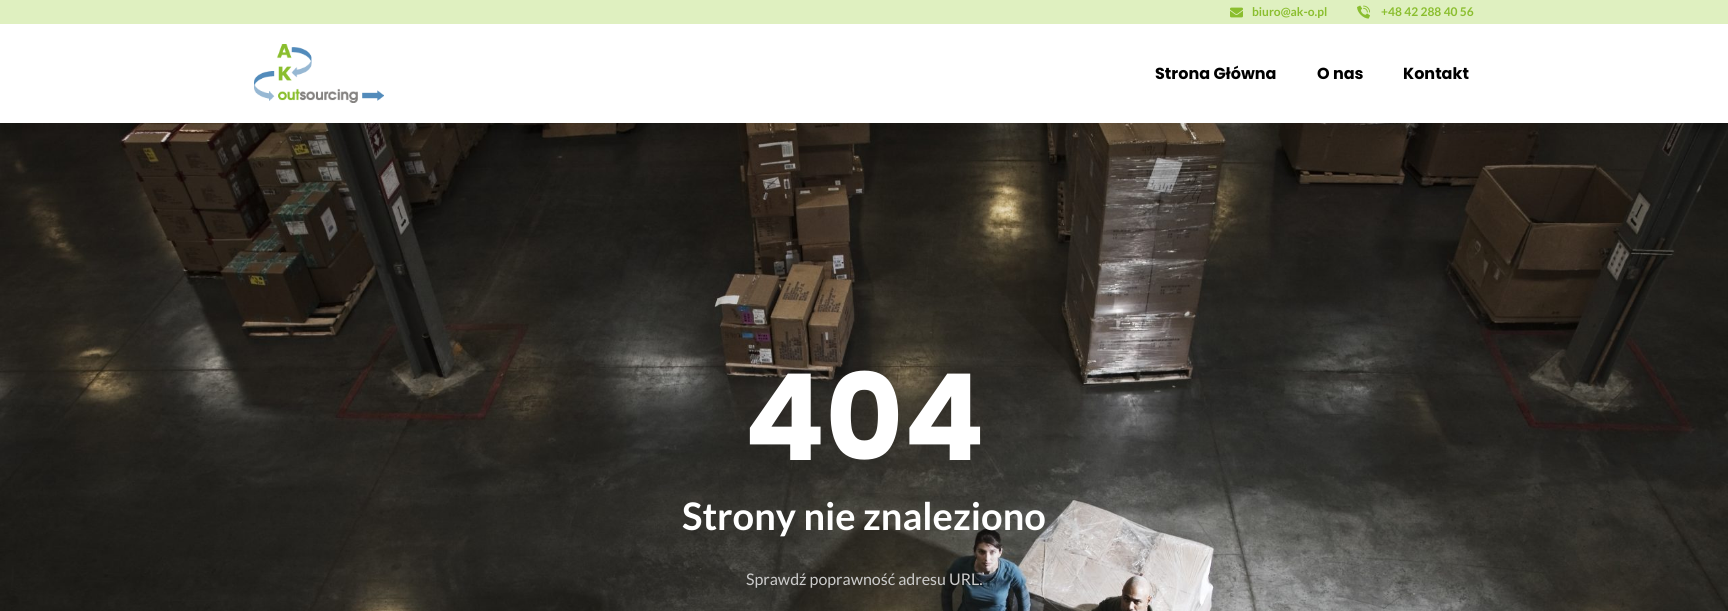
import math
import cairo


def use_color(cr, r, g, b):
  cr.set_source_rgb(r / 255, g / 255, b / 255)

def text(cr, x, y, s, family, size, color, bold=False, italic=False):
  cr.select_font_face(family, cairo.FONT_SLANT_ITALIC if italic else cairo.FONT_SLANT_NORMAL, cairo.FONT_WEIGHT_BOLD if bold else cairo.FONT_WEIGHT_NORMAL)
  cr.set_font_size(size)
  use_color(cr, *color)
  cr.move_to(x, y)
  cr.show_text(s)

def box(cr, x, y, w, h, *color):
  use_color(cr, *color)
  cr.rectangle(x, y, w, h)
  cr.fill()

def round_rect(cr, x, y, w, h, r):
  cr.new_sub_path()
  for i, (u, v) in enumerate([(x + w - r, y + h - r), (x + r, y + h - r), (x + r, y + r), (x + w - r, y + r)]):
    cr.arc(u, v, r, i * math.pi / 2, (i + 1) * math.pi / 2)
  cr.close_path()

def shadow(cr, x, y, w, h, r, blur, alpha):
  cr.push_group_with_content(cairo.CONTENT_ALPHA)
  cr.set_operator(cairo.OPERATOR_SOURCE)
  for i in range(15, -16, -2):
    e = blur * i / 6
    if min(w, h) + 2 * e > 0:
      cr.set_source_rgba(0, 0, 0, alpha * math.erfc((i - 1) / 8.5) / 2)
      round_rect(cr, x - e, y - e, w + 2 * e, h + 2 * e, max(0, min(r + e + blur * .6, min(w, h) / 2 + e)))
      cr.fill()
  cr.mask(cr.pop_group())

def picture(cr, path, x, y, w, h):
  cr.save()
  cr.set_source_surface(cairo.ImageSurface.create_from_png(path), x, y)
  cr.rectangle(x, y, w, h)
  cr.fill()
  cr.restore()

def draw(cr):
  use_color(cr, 255, 255, 255)
  cr.paint()
  box(cr, 0, 0, 1728, 24, 223, 240, 192)
  picture(cr, "img_01.png", 1230, 7, 13, 11)
  picture(cr, "img_04.png", 0, 123, 1728, 488)
  cr.save()
  cr.rectangle(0, 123, 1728, 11)
  cr.clip()
  use_color(cr, 0, 0, 0)
  shadow(cr, 0, 34, 1728, 99, 0, 5, 0.05)
  cr.restore()
  picture(cr, "img_02.png", 1357, 5, 13, 14)
  picture(cr, "img_03.png", 254, 44, 130, 59)
  text(cr, 1252, 16, "biuro@ak-o.pl", "Lato", 12, (138, 190, 46), bold=True)
  text(cr, 1381, 16, "+48 42 288 40 56", "Lato", 12, (138, 190, 46), bold=True)
  text(cr, 1155, 79, "Strona Główna", "Poppins", 16, (0, 0, 0), bold=True)
  text(cr, 1317, 79, "O nas", "Poppins", 16, (0, 0, 0), bold=True)
  text(cr, 1403, 79, "Kontakt", "Poppins", 16, (0, 0, 0), bold=True)
  text(cr, 744, 460, "404", "Poppins", 120, (255, 255, 255), bold=True)
  text(cr, 682, 530, "Strony nie znaleziono", "Lato", 38, (255, 255, 255), bold=True)
  text(cr, 746, 585, "Sprawdź poprawność adresu URL.", "Lato", 16, (204, 204, 204))


surface = cairo.ImageSurface(cairo.FORMAT_RGB24, 1728, 611)
cr = cairo.Context(surface)
options = cairo.FontOptions()
options.set_hint_metrics(cairo.HINT_METRICS_OFF)
options.set_hint_style(cairo.HINT_STYLE_NONE)
cr.set_font_options(options)
cr.set_miter_limit(4)
draw(cr)
surface.write_to_png("out.png")
